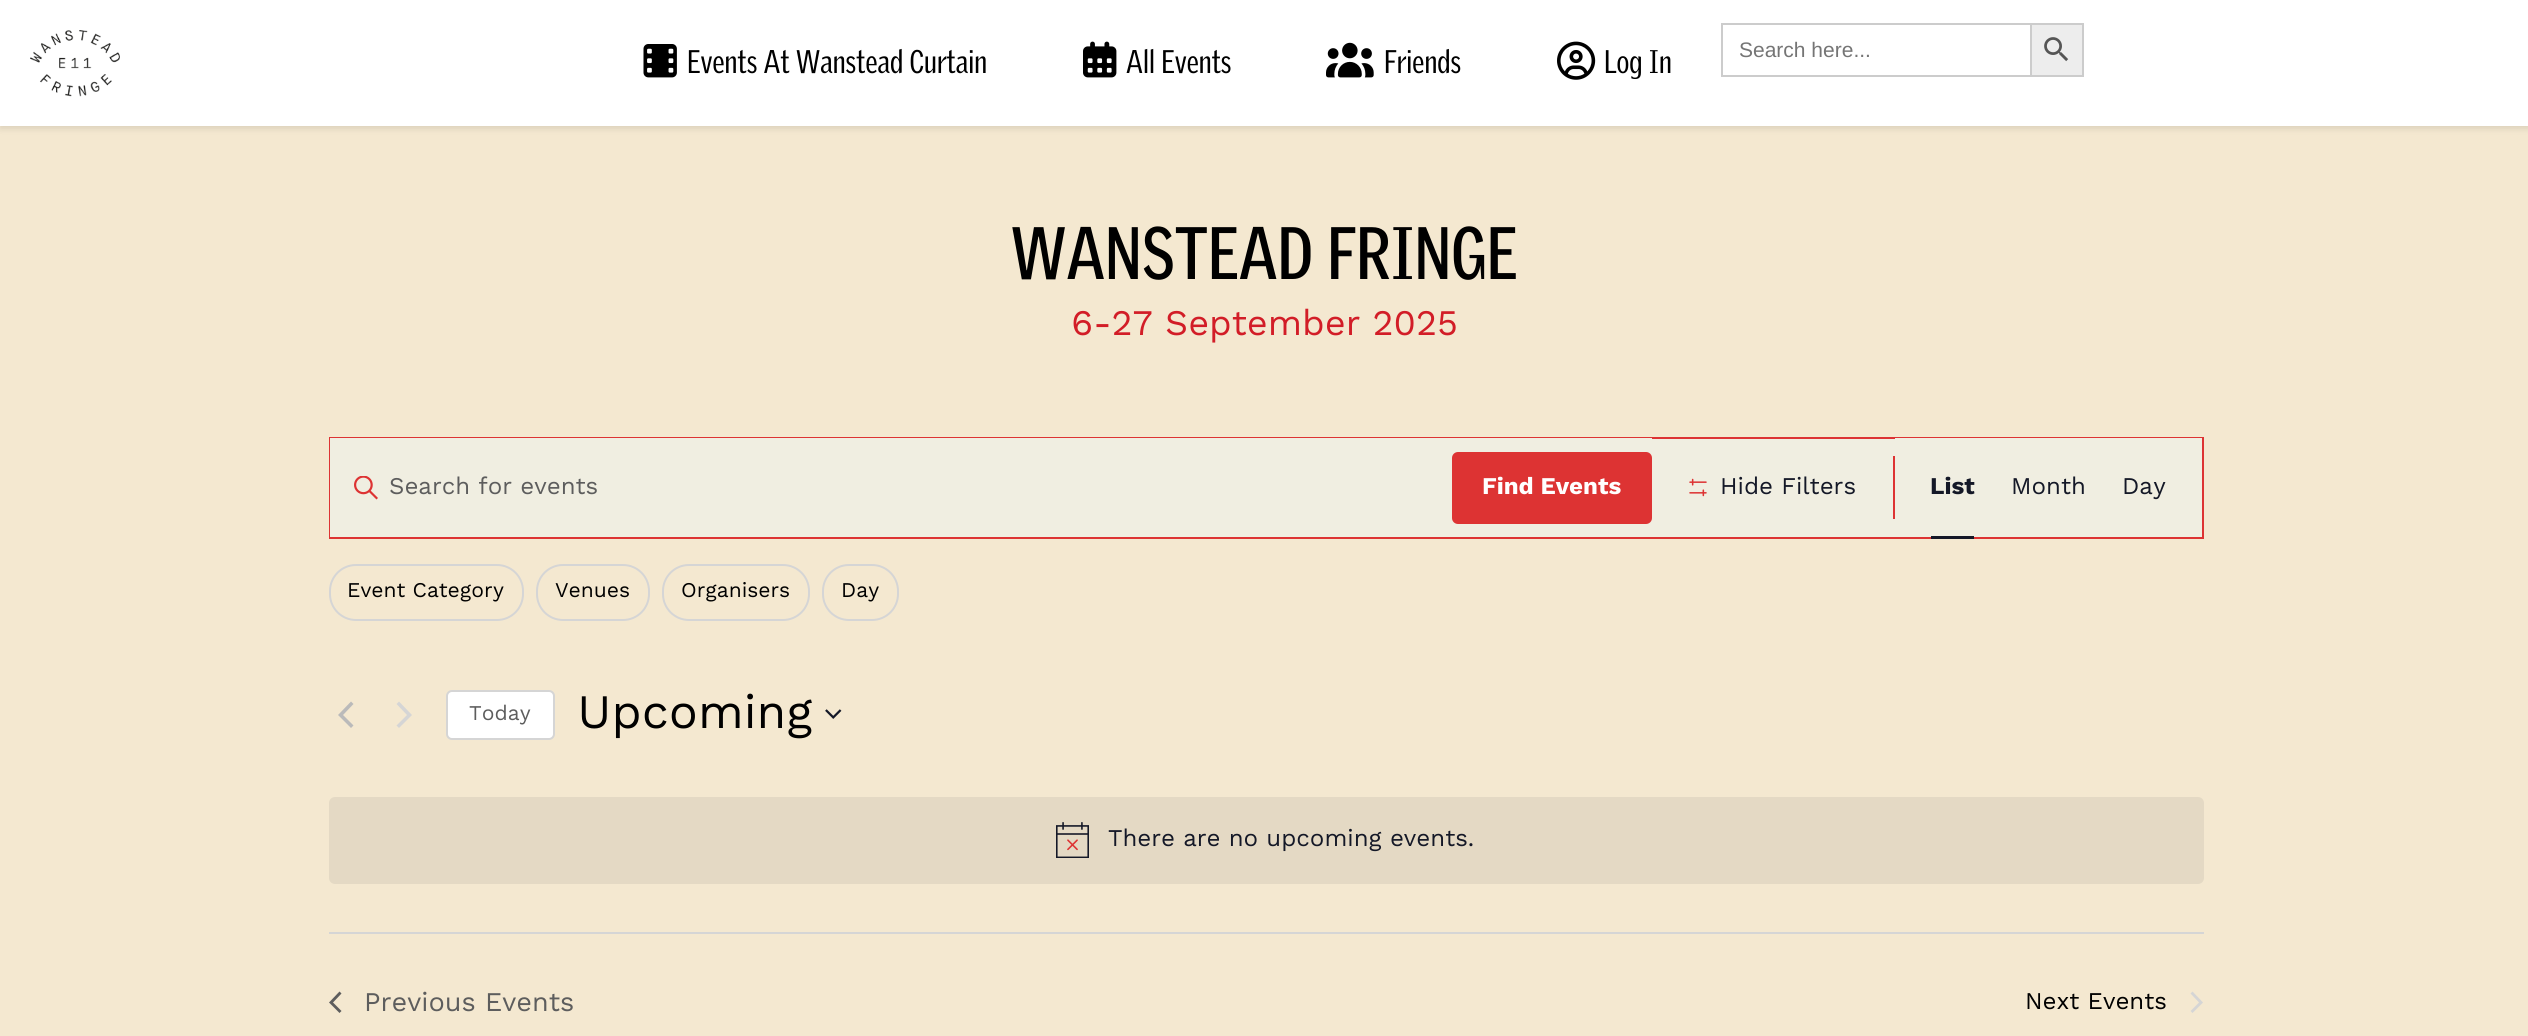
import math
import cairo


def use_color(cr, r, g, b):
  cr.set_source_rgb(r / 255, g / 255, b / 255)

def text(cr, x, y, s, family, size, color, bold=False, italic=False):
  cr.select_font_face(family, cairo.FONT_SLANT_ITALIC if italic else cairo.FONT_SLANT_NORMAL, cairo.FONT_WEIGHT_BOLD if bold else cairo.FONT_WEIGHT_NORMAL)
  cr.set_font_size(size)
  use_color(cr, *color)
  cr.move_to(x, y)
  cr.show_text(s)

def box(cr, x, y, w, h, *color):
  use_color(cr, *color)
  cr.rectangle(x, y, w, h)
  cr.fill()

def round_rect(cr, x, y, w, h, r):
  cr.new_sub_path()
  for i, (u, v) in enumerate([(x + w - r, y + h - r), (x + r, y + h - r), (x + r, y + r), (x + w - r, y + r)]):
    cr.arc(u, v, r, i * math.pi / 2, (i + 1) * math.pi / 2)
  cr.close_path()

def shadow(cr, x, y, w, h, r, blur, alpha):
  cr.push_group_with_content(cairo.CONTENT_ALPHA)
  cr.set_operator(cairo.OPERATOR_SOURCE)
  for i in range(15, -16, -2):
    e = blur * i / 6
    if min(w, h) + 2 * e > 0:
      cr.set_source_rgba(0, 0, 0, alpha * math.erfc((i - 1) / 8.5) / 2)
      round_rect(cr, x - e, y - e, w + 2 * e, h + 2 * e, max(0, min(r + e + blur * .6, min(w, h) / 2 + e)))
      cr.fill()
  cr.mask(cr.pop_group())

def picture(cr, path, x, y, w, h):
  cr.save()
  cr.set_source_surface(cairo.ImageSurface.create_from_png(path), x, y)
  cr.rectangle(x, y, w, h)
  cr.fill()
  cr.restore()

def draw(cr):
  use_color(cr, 244, 232, 208)
  cr.paint()
  use_color(cr, 0, 0, 0)
  shadow(cr, 0, 3, 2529, 126, 0, 3, 0.1)
  box(cr, 0, 0, 2528, 126, 255, 255, 255)
  picture(cr, "img_01.png", 30, 30, 90, 67)
  picture(cr, "img_02.png", 643, 44, 34, 34)
  picture(cr, "img_03.png", 1083, 41, 34, 37)
  picture(cr, "img_04.png", 1326, 42, 48, 36)
  picture(cr, "img_05.png", 1557, 41, 39, 39)
  box(cr, 1721, 23, 309, 2, 204, 204, 204)
  box(cr, 1721, 75, 309, 2, 204, 204, 204)
  box(cr, 1721, 23, 2, 54, 204, 204, 204)
  use_color(cr, 237, 237, 237)
  cr.rectangle(2031, 24, 52, 52)
  cr.fill_preserve()
  use_color(cr, 204, 204, 204)
  cr.stroke()
  picture(cr, "img_06.png", 2044, 37, 25, 25)
  box(cr, 1652, 439, 243, 98, 240, 238, 225)
  cr.rectangle(330, 438, 1873, 100)
  use_color(cr, 221, 51, 51)
  cr.stroke()
  box(cr, 330, 438, 1322, 99, 240, 238, 225)
  picture(cr, "img_07.png", 354, 476, 24, 24)
  use_color(cr, 221, 51, 51)
  round_rect(cr, 1452, 452, 200, 72, 6)
  cr.fill()
  box(cr, 1893, 456, 2, 63, 221, 51, 51)
  picture(cr, "img_08.png", 1689, 478, 18, 19)
  box(cr, 1895, 438, 307, 99, 240, 238, 225)
  box(cr, 1931, 536, 43, 3, 20, 24, 39)
  round_rect(cr, 330, 565, 193, 55, 26)
  use_color(cr, 213, 213, 213)
  cr.stroke()
  round_rect(cr, 537, 565, 112, 55, 26)
  cr.stroke()
  round_rect(cr, 663, 565, 146, 55, 26)
  cr.stroke()
  round_rect(cr, 823, 565, 75, 55, 26)
  cr.stroke()
  use_color(cr, 186, 186, 186)
  cr.new_path()
  cr.move_to(353.5, 725.5)
  cr.line_to(351, 728)
  cr.line_to(338, 715)
  cr.line_to(351, 701.5)
  cr.line_to(353.5, 704)
  cr.line_to(343, 715)
  cr.close_path()
  cr.fill()
  use_color(cr, 213, 213, 213)
  cr.new_path()
  cr.move_to(396.5, 704)
  cr.line_to(399, 701.5)
  cr.line_to(412, 715)
  cr.line_to(399, 728)
  cr.line_to(396.5, 725.5)
  cr.line_to(407, 715)
  cr.close_path()
  cr.fill()
  use_color(cr, 255, 255, 255)
  round_rect(cr, 447, 691, 107, 48, 5)
  cr.fill_preserve()
  use_color(cr, 213, 213, 213)
  cr.stroke()
  picture(cr, "img_09.png", 825, 709, 17, 10)
  use_color(cr, 228, 217, 196)
  round_rect(cr, 329, 797, 1875, 87, 6)
  cr.fill()
  picture(cr, "img_10.png", 1056, 822, 33, 36)
  box(cr, 329, 932, 1875, 2, 213, 213, 213)
  use_color(cr, 93, 93, 93)
  cr.new_path()
  cr.move_to(341.5, 1011)
  cr.line_to(339.5, 1013)
  cr.line_to(329, 1002.5)
  cr.line_to(339.5, 991.5)
  cr.line_to(341.5, 993.5)
  cr.line_to(333, 1002.5)
  cr.close_path()
  cr.fill()
  use_color(cr, 213, 213, 213)
  cr.new_path()
  cr.move_to(2190.5, 993.5)
  cr.line_to(2192.5, 991.5)
  cr.line_to(2203, 1002.5)
  cr.line_to(2192.5, 1013)
  cr.line_to(2190.5, 1011)
  cr.line_to(2199, 1002.5)
  cr.close_path()
  cr.fill()
  text(cr, 687, 73, "Events At Wanstead Curtain", "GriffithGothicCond", 31.75, (0, 0, 0))
  text(cr, 1126, 73, "All Events", "GriffithGothicCond", 31.75, (0, 0, 0))
  text(cr, 1384, 73, "Friends", "GriffithGothicCond", 31.75, (0, 0, 0))
  text(cr, 1604, 73, "Log In", "GriffithGothicCond", 31.75, (0, 0, 0))
  text(cr, 1739, 57, "Search here...", "Liberation Sans", 21, (117, 117, 117))
  text(cr, 1011, 279, "WANSTEAD FRINGE", "GriffithGothicCond", 72, (0, 0, 0), bold=True)
  text(cr, 1071, 335, "6-27 September 2025", "Work Sans", 36, (210, 29, 39))
  text(cr, 389, 494, "Search for events", "Work Sans", 24, (93, 93, 93))
  text(cr, 1482, 494, "Find Events", "Work Sans", 24, (255, 255, 255), bold=True)
  text(cr, 1720, 494, "Hide Filters", "Work Sans", 24, (20, 24, 39))
  text(cr, 1930, 494, "List", "Work Sans", 24, (20, 24, 39), bold=True)
  text(cr, 2011, 494, "Month", "Work Sans", 24, (20, 24, 39))
  text(cr, 2122, 494, "Day", "Work Sans", 24, (20, 24, 39))
  text(cr, 347, 597, "Event Category", "Work Sans", 21, (0, 0, 0))
  text(cr, 555, 597, "Venues", "Work Sans", 21, (0, 0, 0))
  text(cr, 681, 597, "Organisers", "Work Sans", 21, (0, 0, 0))
  text(cr, 841, 597, "Day", "Work Sans", 21, (0, 0, 0))
  text(cr, 469, 720, "Today", "Work Sans", 21, (93, 93, 93))
  text(cr, 577, 728, "Upcoming", "Work Sans", 48, (0, 0, 0))
  text(cr, 1108, 846, "There are no upcoming events.", "Work Sans", 24, (20, 24, 39))
  text(cr, 364, 1011, "Previous Events", "Work Sans", 27, (93, 93, 93))
  text(cr, 2025, 1009, "Next Events", "Work Sans", 24, (0, 0, 0))


surface = cairo.ImageSurface(cairo.FORMAT_RGB24, 2528, 1036)
cr = cairo.Context(surface)
options = cairo.FontOptions()
options.set_hint_metrics(cairo.HINT_METRICS_OFF)
options.set_hint_style(cairo.HINT_STYLE_NONE)
cr.set_font_options(options)
cr.set_miter_limit(4)
draw(cr)
surface.write_to_png("out.png")
